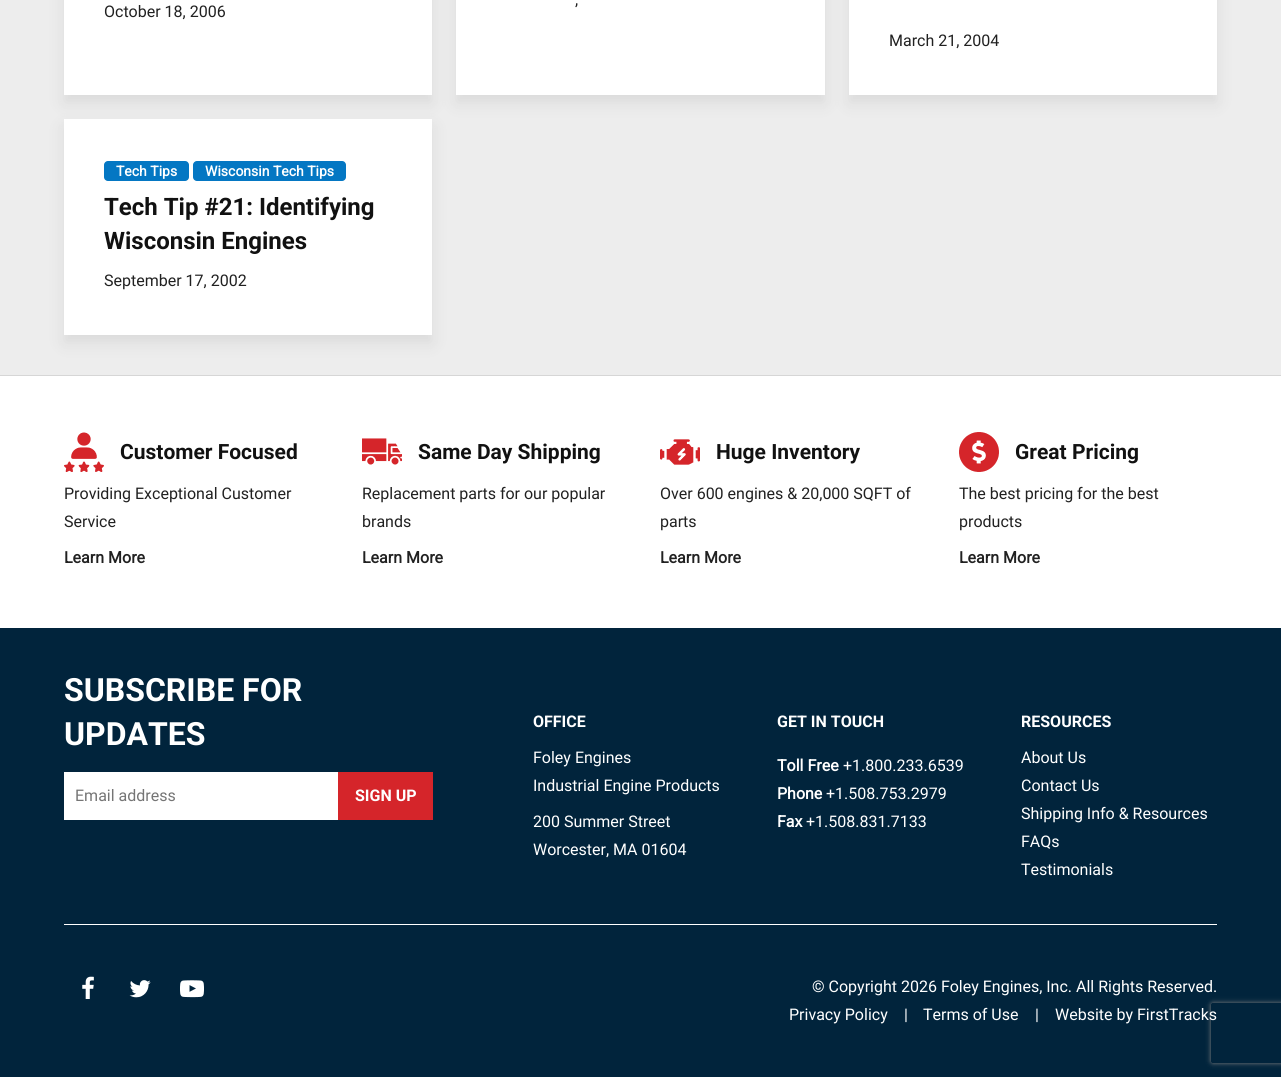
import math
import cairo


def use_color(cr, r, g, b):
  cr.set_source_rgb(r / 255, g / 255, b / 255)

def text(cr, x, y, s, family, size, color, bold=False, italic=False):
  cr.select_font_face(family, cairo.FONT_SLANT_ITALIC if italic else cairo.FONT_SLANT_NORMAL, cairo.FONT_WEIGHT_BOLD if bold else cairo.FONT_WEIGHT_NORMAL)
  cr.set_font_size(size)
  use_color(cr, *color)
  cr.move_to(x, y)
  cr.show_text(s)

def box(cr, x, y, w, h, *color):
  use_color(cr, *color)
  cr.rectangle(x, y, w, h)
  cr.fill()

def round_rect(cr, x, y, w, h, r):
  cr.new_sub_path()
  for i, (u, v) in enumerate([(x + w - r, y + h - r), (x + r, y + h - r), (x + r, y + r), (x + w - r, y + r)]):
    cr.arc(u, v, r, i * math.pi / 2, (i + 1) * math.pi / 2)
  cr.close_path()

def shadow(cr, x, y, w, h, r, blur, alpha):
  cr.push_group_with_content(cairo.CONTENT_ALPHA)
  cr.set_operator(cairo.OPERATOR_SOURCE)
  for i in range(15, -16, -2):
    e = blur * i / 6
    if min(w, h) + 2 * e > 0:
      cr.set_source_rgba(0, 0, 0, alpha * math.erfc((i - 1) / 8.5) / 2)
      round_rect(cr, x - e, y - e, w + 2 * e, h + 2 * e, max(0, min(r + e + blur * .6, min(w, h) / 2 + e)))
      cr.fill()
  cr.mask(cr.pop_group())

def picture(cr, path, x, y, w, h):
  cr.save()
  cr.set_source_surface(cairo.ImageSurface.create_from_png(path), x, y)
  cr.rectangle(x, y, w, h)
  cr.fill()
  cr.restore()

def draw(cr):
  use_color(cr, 237, 237, 237)
  cr.paint()
  use_color(cr, 48, 49, 51)
  shadow(cr, 64, -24, 368, 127, 0, 8, 0.1)
  box(cr, 64, 0, 368, 95, 255, 255, 255)
  use_color(cr, 48, 49, 51)
  shadow(cr, 456, -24, 369, 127, 0, 8, 0.1)
  box(cr, 456, 0, 369, 95, 255, 255, 255)
  use_color(cr, 48, 49, 51)
  shadow(cr, 849, -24, 368, 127, 0, 8, 0.1)
  box(cr, 849, 0, 368, 95, 255, 255, 255)
  use_color(cr, 48, 49, 51)
  shadow(cr, 64, 127, 368, 216, 0, 8, 0.1)
  box(cr, 64, 119, 368, 216, 255, 255, 255)
  use_color(cr, 4, 119, 195)
  round_rect(cr, 104, 161, 85, 20, 4)
  cr.fill()
  round_rect(cr, 193, 161, 153, 20, 4)
  cr.fill()
  box(cr, 0, 376, 1281, 252, 255, 255, 255)
  box(cr, 0, 375, 1281, 1, 214, 214, 214)
  picture(cr, "img_01.png", 64, 432, 40, 40)
  picture(cr, "img_02.png", 362, 438, 40, 27)
  picture(cr, "img_03.png", 660, 439, 40, 26)
  picture(cr, "img_04.png", 959, 432, 40, 40)
  box(cr, 0, 628, 1281, 449, 1, 36, 60)
  box(cr, 64, 772, 274, 48, 255, 255, 255)
  cr.save()
  cr.set_fill_rule(cairo.FILL_RULE_EVEN_ODD)
  cr.new_path()
  cr.move_to(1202, 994)
  cr.line_to(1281, 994)
  cr.line_to(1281, 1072)
  cr.line_to(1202, 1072)
  cr.close_path()
  cr.move_to(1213, 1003)
  cr.line_to(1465, 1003)
  cr.curve_to(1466, 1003, 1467, 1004, 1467, 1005)
  cr.line_to(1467, 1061)
  cr.curve_to(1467, 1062, 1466, 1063, 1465, 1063)
  cr.line_to(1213, 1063)
  cr.curve_to(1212, 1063, 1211, 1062, 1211, 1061)
  cr.line_to(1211, 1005)
  cr.curve_to(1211, 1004, 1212, 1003, 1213, 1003)
  cr.close_path()
  cr.clip()
  use_color(cr, 128, 128, 128)
  shadow(cr, 1211, 1003, 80, 60, 2, 2.5, 1)
  cr.restore()
  box(cr, 338, 772, 95, 48, 213, 37, 42)
  box(cr, 64, 924, 1153, 1, 255, 255, 255)
  picture(cr, "img_05.png", 82, 976, 12, 23)
  picture(cr, "img_06.png", 129, 980, 22, 18)
  picture(cr, "img_07.png", 180, 980, 24, 18)
  text(cr, 104, 17, "October 18, 2006", "Roboto", 16, (33, 33, 33))
  text(cr, 575, 5, ",", "Roboto", 16, (33, 33, 33))
  text(cr, 889, 46, "March 21, 2004", "Roboto", 16, (33, 33, 33))
  text(cr, 116, 176, "Tech Tips", "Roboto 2", 14, (255, 255, 255), bold=True)
  text(cr, 205, 176, "Wisconsin Tech Tips", "Roboto 2", 14, (255, 255, 255), bold=True)
  text(cr, 104, 215, "Tech Tip #21: Identifying", "Roboto", 24, (17, 17, 17), bold=True)
  text(cr, 104, 249, "Wisconsin Engines", "Roboto", 24, (17, 17, 17), bold=True)
  text(cr, 104, 286, "September 17, 2002", "Roboto", 16, (33, 33, 33))
  text(cr, 120, 459, "Customer Focused", "Roboto", 21, (17, 17, 17), bold=True)
  text(cr, 64, 499, "Providing Exceptional Customer", "Roboto", 16, (33, 33, 33))
  text(cr, 64, 527, "Service", "Roboto", 16, (33, 33, 33))
  text(cr, 64, 563, "Learn More", "Roboto 2", 16, (33, 33, 33), bold=True)
  text(cr, 418, 459, "Same Day Shipping", "Roboto", 21, (17, 17, 17), bold=True)
  text(cr, 362, 499, "Replacement parts for our popular", "Roboto", 16, (33, 33, 33))
  text(cr, 362, 527, "brands", "Roboto", 16, (33, 33, 33))
  text(cr, 362, 563, "Learn More", "Roboto 2", 16, (33, 33, 33), bold=True)
  text(cr, 716, 459, "Huge Inventory", "Roboto", 21, (17, 17, 17), bold=True)
  text(cr, 660, 499, "Over 600 engines & 20,000 SQFT of", "Roboto", 16, (33, 33, 33))
  text(cr, 660, 527, "parts", "Roboto", 16, (33, 33, 33))
  text(cr, 660, 563, "Learn More", "Roboto 2", 16, (33, 33, 33), bold=True)
  text(cr, 1015, 459, "Great Pricing", "Roboto", 21, (17, 17, 17), bold=True)
  text(cr, 959, 499, "The best pricing for the best", "Roboto", 16, (33, 33, 33))
  text(cr, 959, 527, "products", "Roboto", 16, (33, 33, 33))
  text(cr, 959, 563, "Learn More", "Roboto 2", 16, (33, 33, 33), bold=True)
  text(cr, 64, 701, "SUBSCRIBE FOR", "Roboto", 32, (255, 255, 255), bold=True)
  text(cr, 64, 745, "UPDATES", "Roboto", 32, (255, 255, 255), bold=True)
  text(cr, 75, 801, "Email address", "Roboto", 16, (117, 117, 117))
  text(cr, 355, 801, "SIGN UP", "Roboto", 16, (255, 255, 255), bold=True)
  text(cr, 533, 727, "OFFICE", "Roboto", 16, (255, 255, 255), bold=True)
  text(cr, 533, 763, "Foley Engines", "Roboto", 16, (255, 255, 255))
  text(cr, 533, 791, "Industrial Engine Products", "Roboto", 16, (255, 255, 255))
  text(cr, 533, 827, "200 Summer Street", "Roboto", 16, (255, 255, 255))
  text(cr, 533, 855, "Worcester, MA 01604", "Roboto", 16, (255, 255, 255))
  text(cr, 777, 727, "GET IN TOUCH", "Roboto", 16, (255, 255, 255), bold=True)
  text(cr, 777, 771, "Toll Free", "Roboto 2", 16, (255, 255, 255), bold=True)
  text(cr, 843, 771, "+1.800.233.6539", "Roboto", 16, (255, 255, 255))
  text(cr, 777, 799, "Phone", "Roboto 2", 16, (255, 255, 255), bold=True)
  text(cr, 826, 799, "+1.508.753.2979", "Roboto", 16, (255, 255, 255))
  text(cr, 777, 827, "Fax", "Roboto 2", 16, (255, 255, 255), bold=True)
  text(cr, 806, 827, "+1.508.831.7133", "Roboto", 16, (255, 255, 255))
  text(cr, 1021, 727, "RESOURCES", "Roboto", 16, (255, 255, 255), bold=True)
  text(cr, 1021, 763, "About Us", "Roboto", 16, (255, 255, 255))
  text(cr, 1021, 791, "Contact Us", "Roboto", 16, (255, 255, 255))
  text(cr, 1021, 819, "Shipping Info & Resources", "Roboto", 16, (255, 255, 255))
  text(cr, 1021, 847, "FAQs", "Roboto", 16, (255, 255, 255))
  text(cr, 1021, 875, "Testimonials", "Roboto", 16, (255, 255, 255))
  text(cr, 812, 992, "© Copyright 2026 Foley Engines, Inc. All Rights Reserved.", "Roboto", 16, (255, 255, 255))
  text(cr, 789, 1020, "Privacy Policy", "Roboto", 16, (255, 255, 255))
  text(cr, 904, 1020, "|", "Roboto", 16, (255, 255, 255))
  text(cr, 923, 1020, "Terms of Use", "Roboto", 16, (255, 255, 255))
  text(cr, 1035, 1020, "|", "Roboto", 16, (255, 255, 255))
  text(cr, 1055, 1020, "Website by FirstTracks", "Roboto", 16, (255, 255, 255))


surface = cairo.ImageSurface(cairo.FORMAT_RGB24, 1281, 1077)
cr = cairo.Context(surface)
options = cairo.FontOptions()
options.set_hint_metrics(cairo.HINT_METRICS_OFF)
options.set_hint_style(cairo.HINT_STYLE_NONE)
cr.set_font_options(options)
cr.set_miter_limit(4)
draw(cr)
surface.write_to_png("out.png")
